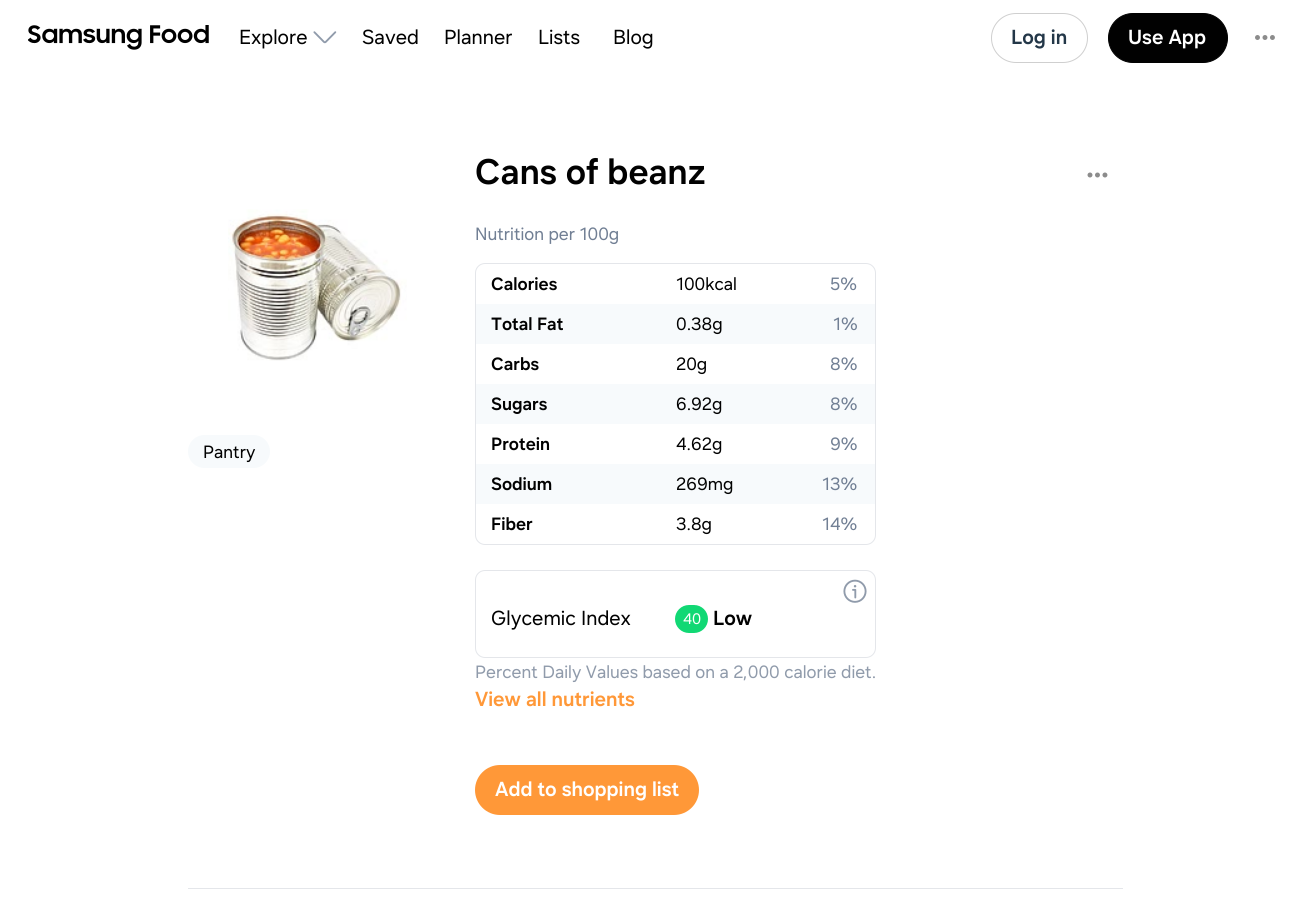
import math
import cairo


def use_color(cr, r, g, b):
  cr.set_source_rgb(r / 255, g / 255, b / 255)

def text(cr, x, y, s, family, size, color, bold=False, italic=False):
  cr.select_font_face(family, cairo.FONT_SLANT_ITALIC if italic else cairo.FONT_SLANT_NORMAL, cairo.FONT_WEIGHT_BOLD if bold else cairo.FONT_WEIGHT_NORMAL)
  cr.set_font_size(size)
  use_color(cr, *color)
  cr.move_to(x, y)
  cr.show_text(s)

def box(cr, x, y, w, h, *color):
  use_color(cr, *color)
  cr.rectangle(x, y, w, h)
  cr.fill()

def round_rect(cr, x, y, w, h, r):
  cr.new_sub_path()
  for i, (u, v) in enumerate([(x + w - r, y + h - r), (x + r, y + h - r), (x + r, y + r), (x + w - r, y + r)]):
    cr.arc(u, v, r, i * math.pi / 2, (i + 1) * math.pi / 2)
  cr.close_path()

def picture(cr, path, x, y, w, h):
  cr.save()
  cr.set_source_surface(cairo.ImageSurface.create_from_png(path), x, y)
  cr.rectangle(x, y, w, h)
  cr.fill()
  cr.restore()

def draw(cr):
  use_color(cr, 255, 255, 255)
  cr.paint()
  picture(cr, "img_01.png", 28, 25, 181, 25)
  picture(cr, "img_02.png", 313, 31, 24, 13)
  round_rect(cr, 991.5, 13.5, 96, 49, 24.5)
  use_color(cr, 207, 207, 207)
  cr.set_line_width(1)
  cr.stroke()
  use_color(cr, 1, 1, 1)
  round_rect(cr, 1108.5, 13.5, 119, 49, 24.5)
  cr.fill_preserve()
  cr.stroke()
  picture(cr, "img_03.png", 1255, 35, 20, 5)
  box(cr, 188, 888, 935, 1, 228, 230, 234)
  picture(cr, "img_04.png", 228, 209, 179, 152)
  use_color(cr, 247, 250, 252)
  round_rect(cr, 188, 435, 82, 33, 16.5)
  cr.fill()
  picture(cr, "img_05.png", 1087, 172, 21, 6)
  round_rect(cr, 475.5, 263.5, 400, 281, 9.5)
  use_color(cr, 228, 230, 234)
  cr.stroke()
  box(cr, 476, 304, 399, 40, 247, 250, 252)
  box(cr, 476, 384, 399, 40, 247, 250, 252)
  box(cr, 476, 464, 399, 40, 247, 250, 252)
  round_rect(cr, 475.5, 570.5, 400, 87, 9.5)
  use_color(cr, 228, 230, 234)
  cr.stroke()
  picture(cr, "img_06.png", 843, 579, 24, 24)
  use_color(cr, 17, 216, 116)
  round_rect(cr, 675, 605, 33, 28, 14)
  cr.fill()
  use_color(cr, 255, 152, 56)
  round_rect(cr, 475, 765, 224, 50, 25)
  cr.fill()
  text(cr, 239, 44, "Explore", "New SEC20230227", 20, (1, 1, 1))
  text(cr, 362, 44, "Saved", "New SEC20230227", 20, (1, 1, 1))
  text(cr, 444, 44, "Planner", "New SEC20230227", 20, (1, 1, 1))
  text(cr, 538, 44, "Lists", "New SEC20230227", 20, (1, 1, 1))
  text(cr, 613, 44, "Blog", "New SEC20230227", 20, (1, 1, 1))
  text(cr, 1011, 44, "Log in", "New SEC20230227 SemiBold", 20, (35, 55, 72))
  text(cr, 1128, 44, "Use App", "New SEC20230227 SemiBold", 20, (255, 255, 255))
  text(cr, 203, 458, "Pantry", "New SEC20230227", 17.5, (1, 1, 1))
  text(cr, 475, 184, "Cans of beanz", "New SEC20230227 SemiBold", 35, (1, 1, 1))
  text(cr, 475, 240, "Nutrition per 100g", "New SEC20230227", 17.5, (113, 127, 148))
  text(cr, 491, 290, "Calories", "New SEC20230227 SemiBold", 17.5, (1, 1, 1))
  text(cr, 676, 290, "100kcal", "New SEC20230227", 17.5, (1, 1, 1))
  text(cr, 830, 290, "5%", "New SEC20230227", 17.5, (113, 127, 148))
  text(cr, 491, 330, "Total Fat", "New SEC20230227 SemiBold", 17.5, (1, 1, 1))
  text(cr, 676, 330, "0.38g", "New SEC20230227", 17.5, (1, 1, 1))
  text(cr, 833, 330, "1%", "New SEC20230227", 17.5, (113, 127, 148))
  text(cr, 491, 370, "Carbs", "New SEC20230227 SemiBold", 17.5, (1, 1, 1))
  text(cr, 676, 370, "20g", "New SEC20230227", 17.5, (1, 1, 1))
  text(cr, 830, 370, "8%", "New SEC20230227", 17.5, (113, 127, 148))
  text(cr, 491, 410, "Sugars", "New SEC20230227 SemiBold", 17.5, (1, 1, 1))
  text(cr, 676, 410, "6.92g", "New SEC20230227", 17.5, (1, 1, 1))
  text(cr, 830, 410, "8%", "New SEC20230227", 17.5, (113, 127, 148))
  text(cr, 491, 450, "Protein", "New SEC20230227 SemiBold", 17.5, (1, 1, 1))
  text(cr, 676, 450, "4.62g", "New SEC20230227", 17.5, (1, 1, 1))
  text(cr, 830, 450, "9%", "New SEC20230227", 17.5, (113, 127, 148))
  text(cr, 491, 490, "Sodium", "New SEC20230227 SemiBold", 17.5, (1, 1, 1))
  text(cr, 676, 490, "269mg", "New SEC20230227", 17.5, (1, 1, 1))
  text(cr, 822, 490, "13%", "New SEC20230227", 17.5, (113, 127, 148))
  text(cr, 491, 530, "Fiber", "New SEC20230227 SemiBold", 17.5, (1, 1, 1))
  text(cr, 676, 530, "3.8g", "New SEC20230227", 17.5, (1, 1, 1))
  text(cr, 822, 530, "14%", "New SEC20230227", 17.5, (113, 127, 148))
  text(cr, 491, 625, "Glycemic Index", "New SEC20230227", 20, (1, 1, 1))
  text(cr, 683, 624, "40", "New SEC20230227", 15, (255, 255, 255))
  text(cr, 713, 625, "Low", "New SEC20230227 SemiBold", 20, (1, 1, 1))
  text(cr, 475, 678, "Percent Daily Values based on a 2,000 calorie diet.", "New SEC20230227", 17.5, (144, 155, 171))
  text(cr, 475, 706, "View all nutrients", "New SEC20230227 SemiBold", 20, (255, 152, 56))
  text(cr, 495, 796, "Add to shopping list", "New SEC20230227 SemiBold", 20, (255, 255, 255))


surface = cairo.ImageSurface(cairo.FORMAT_RGB24, 1309, 918)
cr = cairo.Context(surface)
options = cairo.FontOptions()
options.set_hint_metrics(cairo.HINT_METRICS_OFF)
options.set_hint_style(cairo.HINT_STYLE_NONE)
cr.set_font_options(options)
cr.set_miter_limit(4)
draw(cr)
surface.write_to_png("out.png")
